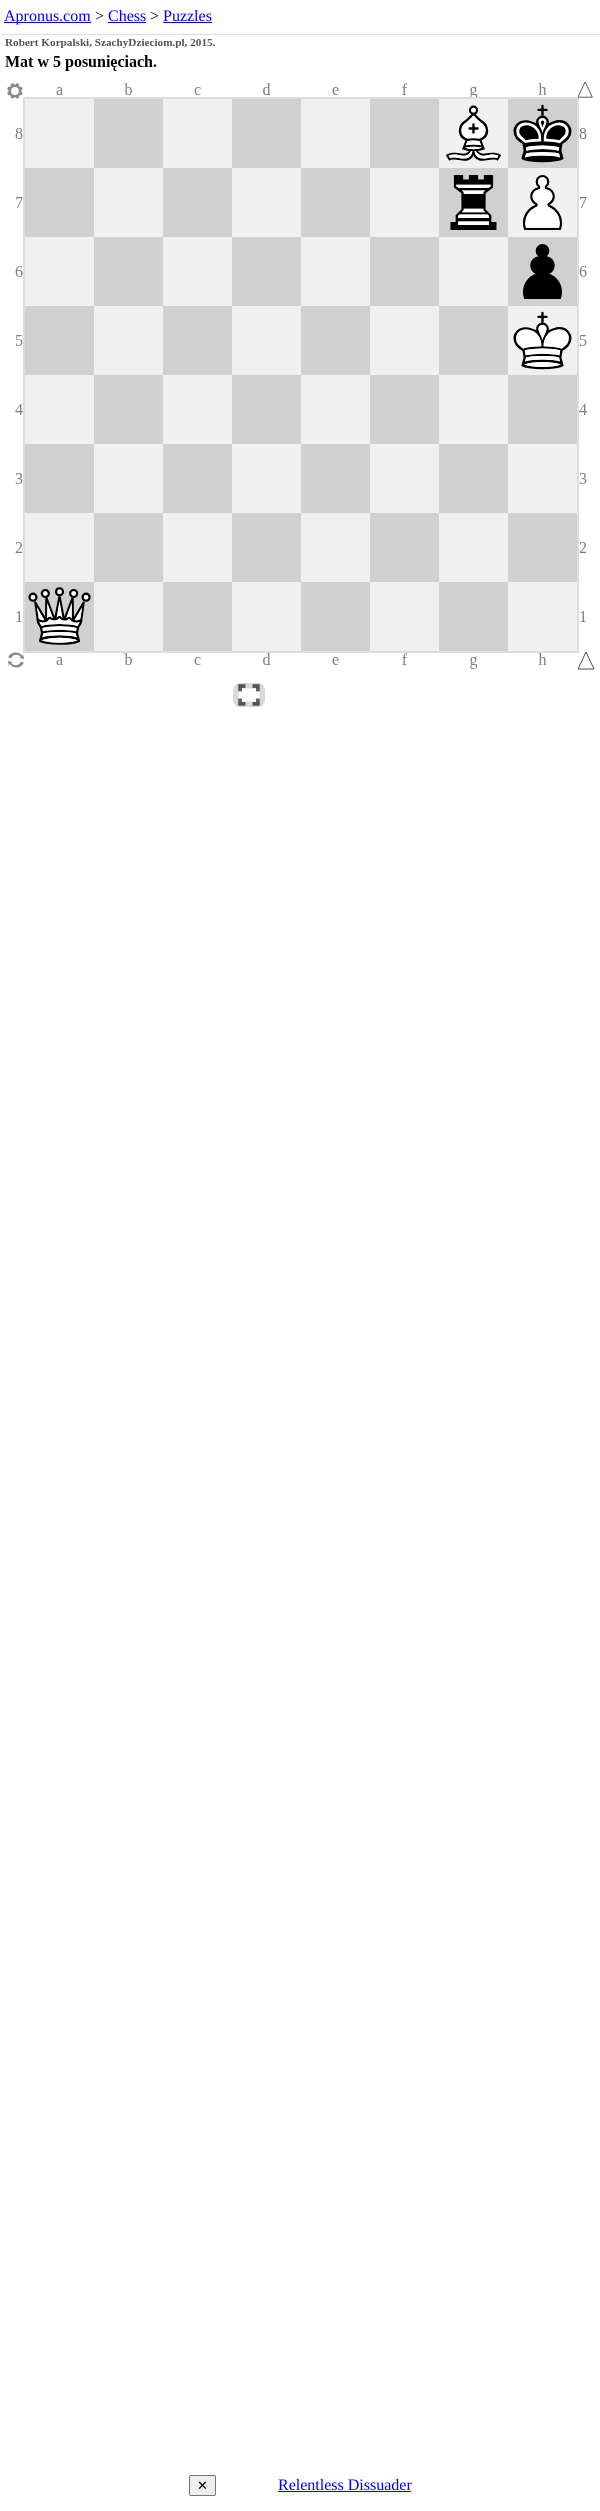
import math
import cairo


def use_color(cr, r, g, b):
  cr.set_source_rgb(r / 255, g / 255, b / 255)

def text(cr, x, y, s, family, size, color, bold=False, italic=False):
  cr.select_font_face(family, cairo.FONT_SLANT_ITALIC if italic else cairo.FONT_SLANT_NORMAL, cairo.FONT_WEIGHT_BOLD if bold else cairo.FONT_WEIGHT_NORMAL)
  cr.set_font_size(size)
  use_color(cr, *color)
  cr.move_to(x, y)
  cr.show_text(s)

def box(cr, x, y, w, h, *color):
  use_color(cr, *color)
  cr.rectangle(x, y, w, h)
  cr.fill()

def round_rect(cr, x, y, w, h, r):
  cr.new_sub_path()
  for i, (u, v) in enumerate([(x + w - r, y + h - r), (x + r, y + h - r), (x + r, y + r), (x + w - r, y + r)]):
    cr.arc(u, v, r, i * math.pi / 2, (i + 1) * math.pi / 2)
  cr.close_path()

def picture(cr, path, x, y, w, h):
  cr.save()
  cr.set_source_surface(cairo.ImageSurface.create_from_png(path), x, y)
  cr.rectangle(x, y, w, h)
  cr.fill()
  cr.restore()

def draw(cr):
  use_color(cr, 255, 255, 255)
  cr.paint()
  box(cr, 4, 22, 87, 1, 0, 0, 238)
  box(cr, 108, 22, 38, 1, 0, 0, 238)
  box(cr, 163, 22, 49, 1, 0, 0, 238)
  picture(cr, "img_01.png", 2, 34, 598, 673)
  use_color(cr, 239, 239, 239)
  round_rect(cr, 189.5, 2475.5, 26, 20, 1.5)
  cr.fill_preserve()
  use_color(cr, 118, 118, 118)
  cr.set_line_width(1)
  cr.stroke()
  box(cr, 278, 2491, 133, 1, 0, 0, 238)
  text(cr, 4, 21, "Apronus.com", "Liberation Serif", 16, (0, 0, 238))
  text(cr, 95, 21, ">", "Liberation Serif", 16, (0, 0, 0))
  text(cr, 108, 21, "Chess", "Liberation Serif", 16, (0, 0, 238))
  text(cr, 150, 21, ">", "Liberation Serif", 16, (0, 0, 0))
  text(cr, 163, 21, "Puzzles", "Liberation Serif", 16, (0, 0, 238))
  text(cr, 197, 2490, "✕", "DejaVu Sans", 13, (0, 0, 0))
  text(cr, 278, 2490, "Relentless Dissuader", "Liberation Serif", 16, (0, 0, 238))


surface = cairo.ImageSurface(cairo.FORMAT_RGB24, 600, 2511)
cr = cairo.Context(surface)
options = cairo.FontOptions()
options.set_hint_metrics(cairo.HINT_METRICS_OFF)
options.set_hint_style(cairo.HINT_STYLE_NONE)
cr.set_font_options(options)
cr.set_miter_limit(4)
draw(cr)
surface.write_to_png("out.png")
